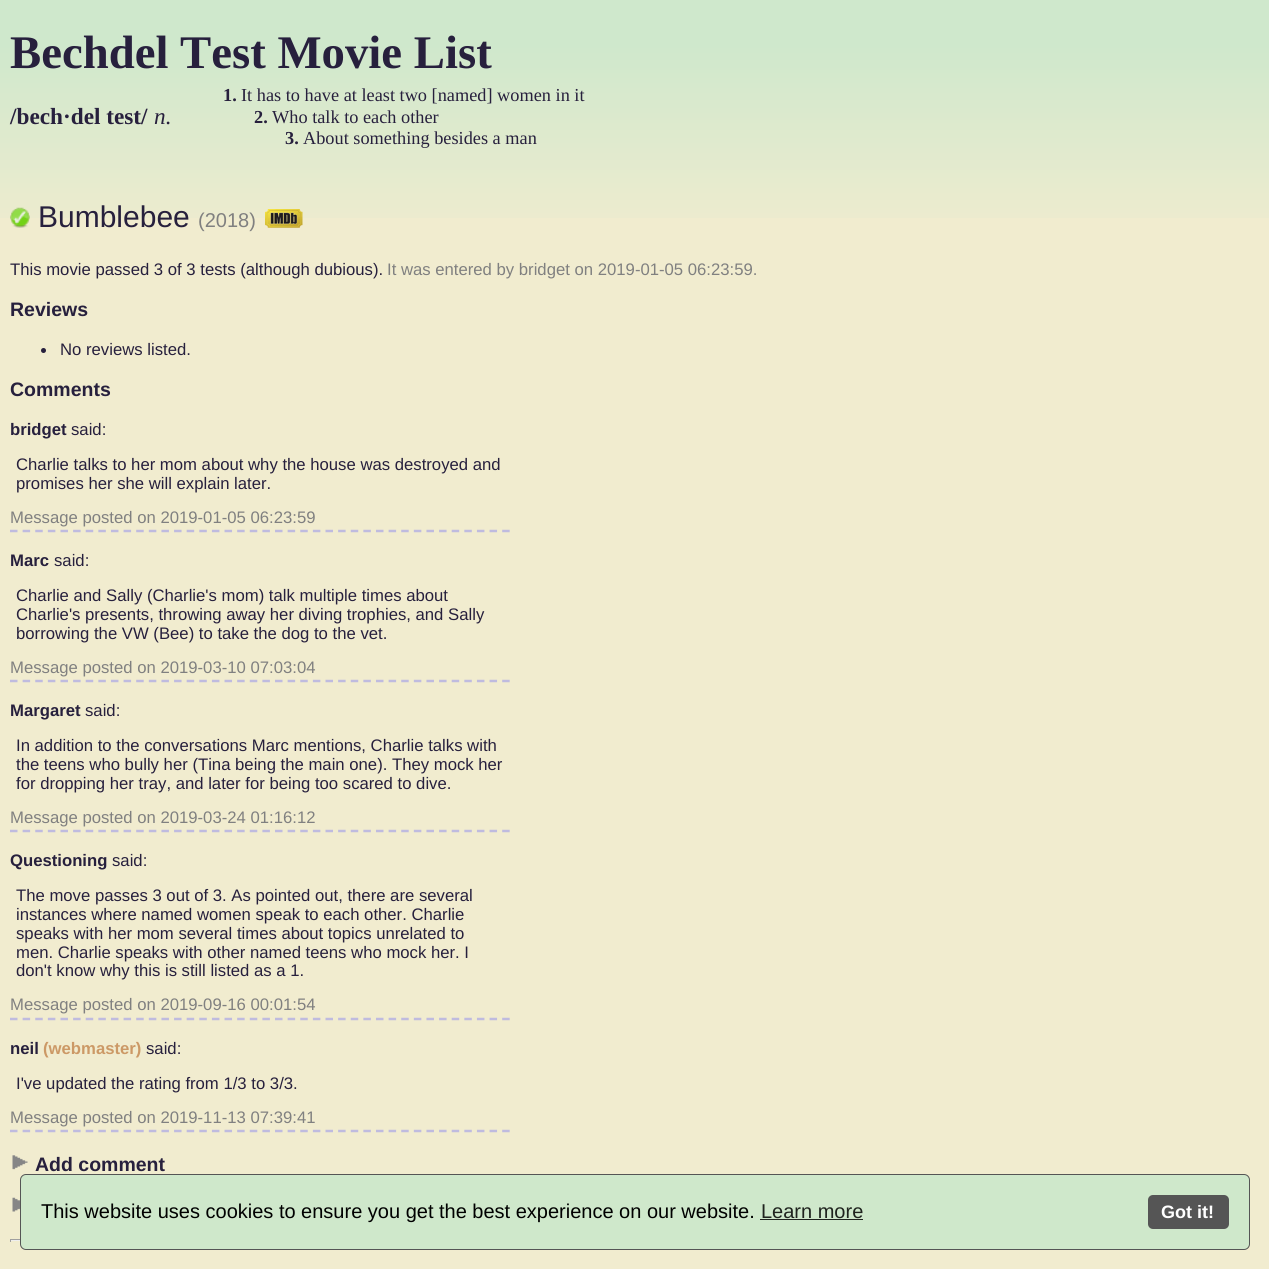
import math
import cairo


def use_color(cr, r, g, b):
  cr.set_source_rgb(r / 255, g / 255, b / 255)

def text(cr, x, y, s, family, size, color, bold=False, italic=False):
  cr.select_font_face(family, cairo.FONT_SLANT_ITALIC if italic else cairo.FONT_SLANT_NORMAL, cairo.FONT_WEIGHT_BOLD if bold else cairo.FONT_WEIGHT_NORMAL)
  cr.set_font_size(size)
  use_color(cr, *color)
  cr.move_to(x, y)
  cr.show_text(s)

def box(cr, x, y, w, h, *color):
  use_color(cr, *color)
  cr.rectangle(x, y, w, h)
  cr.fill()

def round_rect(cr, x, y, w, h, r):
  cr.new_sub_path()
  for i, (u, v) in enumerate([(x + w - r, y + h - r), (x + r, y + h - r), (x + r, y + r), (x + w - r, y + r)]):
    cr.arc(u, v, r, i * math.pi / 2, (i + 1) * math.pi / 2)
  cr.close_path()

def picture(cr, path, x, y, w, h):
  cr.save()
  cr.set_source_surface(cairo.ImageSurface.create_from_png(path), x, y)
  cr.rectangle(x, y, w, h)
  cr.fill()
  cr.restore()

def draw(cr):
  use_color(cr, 241, 236, 207)
  cr.paint()
  picture(cr, "img_01.png", 0, 0, 1269, 218)
  picture(cr, "img_02.png", 10, 207, 20, 21)
  picture(cr, "img_03.png", 265, 209, 38, 19)
  use_color(cr, 39, 32, 61)
  cr.arc(43.5, 350.5, 2.5, 0, 2 * math.pi)
  cr.fill()
  cr.new_path()
  cr.move_to(10, 531)
  cr.line_to(510, 531)
  use_color(cr, 191, 187, 223)
  cr.set_line_width(2.5)
  cr.set_dash([7.5, 5.12])
  cr.stroke()
  cr.new_path()
  cr.move_to(10, 681)
  cr.line_to(510, 681)
  cr.stroke()
  cr.new_path()
  cr.move_to(10, 831)
  cr.line_to(510, 831)
  cr.stroke()
  cr.new_path()
  cr.move_to(10, 1019)
  cr.line_to(510, 1019)
  cr.stroke()
  cr.new_path()
  cr.move_to(10, 1131)
  cr.line_to(510, 1131)
  cr.stroke()
  picture(cr, "img_04.png", 12, 1155, 16, 15)
  picture(cr, "img_05.png", 12, 1197, 8, 15)
  use_color(cr, 207, 232, 203)
  round_rect(cr, 20.5, 1174.5, 1229, 75, 5.5)
  cr.fill_preserve()
  use_color(cr, 85, 85, 85)
  cr.set_line_width(1)
  cr.set_dash([])
  cr.stroke()
  box(cr, 760, 1219, 103, 1, 31, 35, 30)
  use_color(cr, 85, 85, 85)
  round_rect(cr, 1148, 1195, 81, 34, 5)
  cr.fill()
  box(cr, 10, 1239, 10, 1, 159, 159, 159)
  box(cr, 10, 1240, 10, 1, 238, 238, 238)
  box(cr, 10, 1239, 1, 3, 159, 159, 159)
  text(cr, 10, 68, "Bechdel Test Movie List", "Liberation Serif", 46.75, (39, 32, 61), bold=True)
  text(cr, 10, 124, "/bech·del test/", "Liberation Serif", 23.25, (39, 32, 61), bold=True)
  text(cr, 154, 124, "n.", "Liberation Serif", 23.25, (39, 32, 61), italic=True)
  text(cr, 223, 101, "1.", "Liberation Serif", 18.3, (39, 32, 61), bold=True)
  text(cr, 241, 101, "It has to have at least two [named] women in it", "Liberation Serif", 18.3, (39, 32, 61))
  text(cr, 254, 123, "2.", "Liberation Serif", 18.3, (39, 32, 61), bold=True)
  text(cr, 272, 123, "Who talk to each other", "Liberation Serif", 18.3, (39, 32, 61))
  text(cr, 285, 144, "3.", "Liberation Serif", 18.3, (39, 32, 61), bold=True)
  text(cr, 303, 144, "About something besides a man", "Liberation Serif", 18.3, (39, 32, 61))
  text(cr, 38, 227, "Bumblebee", "Liberation Sans", 30, (39, 32, 61))
  text(cr, 198, 227, "(2018)", "Liberation Sans", 20, (128, 128, 128))
  text(cr, 10, 275, "This movie passed 3 of 3 tests (although dubious).", "Liberation Sans", 16.7, (39, 32, 61))
  text(cr, 387, 275, "It was entered by bridget on 2019-01-05 06:23:59.", "Liberation Sans", 16.7, (128, 128, 128))
  text(cr, 10, 316, "Reviews", "Liberation Sans", 19.5, (39, 32, 61), bold=True)
  text(cr, 60, 355, "No reviews listed.", "Liberation Sans", 16.7, (39, 32, 61))
  text(cr, 10, 396, "Comments", "Liberation Sans", 19.5, (39, 32, 61), bold=True)
  text(cr, 10, 435, "bridget", "Liberation Sans", 16.7, (39, 32, 61), bold=True)
  text(cr, 71, 435, "said:", "Liberation Sans", 16.7, (39, 32, 61))
  text(cr, 16, 470, "Charlie talks to her mom about why the house was destroyed and", "Liberation Sans", 16.7, (39, 32, 61))
  text(cr, 16, 489, "promises her she will explain later.", "Liberation Sans", 16.7, (39, 32, 61))
  text(cr, 10, 523, "Message posted on 2019-01-05 06:23:59", "Liberation Sans", 16.7, (128, 128, 128))
  text(cr, 10, 566, "Marc", "Liberation Sans", 16.7, (39, 32, 61), bold=True)
  text(cr, 54, 566, "said:", "Liberation Sans", 16.7, (39, 32, 61))
  text(cr, 16, 601, "Charlie and Sally (Charlie's mom) talk multiple times about", "Liberation Sans", 16.7, (39, 32, 61))
  text(cr, 16, 620, "Charlie's presents, throwing away her diving trophies, and Sally", "Liberation Sans", 16.7, (39, 32, 61))
  text(cr, 16, 639, "borrowing the VW (Bee) to take the dog to the vet.", "Liberation Sans", 16.7, (39, 32, 61))
  text(cr, 10, 673, "Message posted on 2019-03-10 07:03:04", "Liberation Sans", 16.7, (128, 128, 128))
  text(cr, 10, 716, "Margaret", "Liberation Sans", 16.7, (39, 32, 61), bold=True)
  text(cr, 85, 716, "said:", "Liberation Sans", 16.7, (39, 32, 61))
  text(cr, 16, 751, "In addition to the conversations Marc mentions, Charlie talks with", "Liberation Sans", 16.7, (39, 32, 61))
  text(cr, 16, 770, "the teens who bully her (Tina being the main one). They mock her", "Liberation Sans", 16.7, (39, 32, 61))
  text(cr, 16, 789, "for dropping her tray, and later for being too scared to dive.", "Liberation Sans", 16.7, (39, 32, 61))
  text(cr, 10, 823, "Message posted on 2019-03-24 01:16:12", "Liberation Sans", 16.7, (128, 128, 128))
  text(cr, 10, 866, "Questioning", "Liberation Sans", 16.7, (39, 32, 61), bold=True)
  text(cr, 112, 866, "said:", "Liberation Sans", 16.7, (39, 32, 61))
  text(cr, 16, 901, "The move passes 3 out of 3. As pointed out, there are several", "Liberation Sans", 16.7, (39, 32, 61))
  text(cr, 16, 920, "instances where named women speak to each other. Charlie", "Liberation Sans", 16.7, (39, 32, 61))
  text(cr, 16, 939, "speaks with her mom several times about topics unrelated to", "Liberation Sans", 16.7, (39, 32, 61))
  text(cr, 16, 958, "men. Charlie speaks with other named teens who mock her. I", "Liberation Sans", 16.7, (39, 32, 61))
  text(cr, 16, 976, "don't know why this is still listed as a 1.", "Liberation Sans", 16.7, (39, 32, 61))
  text(cr, 10, 1010, "Message posted on 2019-09-16 00:01:54", "Liberation Sans", 16.7, (128, 128, 128))
  text(cr, 10, 1054, "neil", "Liberation Sans", 16.7, (39, 32, 61), bold=True)
  text(cr, 43, 1054, "(webmaster)", "Liberation Sans", 16.7, (204, 153, 102), bold=True)
  text(cr, 146, 1054, "said:", "Liberation Sans", 16.7, (39, 32, 61))
  text(cr, 16, 1089, "I've updated the rating from 1/3 to 3/3.", "Liberation Sans", 16.7, (39, 32, 61))
  text(cr, 10, 1123, "Message posted on 2019-11-13 07:39:41", "Liberation Sans", 16.7, (128, 128, 128))
  text(cr, 35, 1171, "Add comment", "Liberation Sans", 19.5, (39, 32, 61), bold=True)
  text(cr, 41, 1218, "This website uses cookies to ensure you get the best experience on our website.", "Liberation Sans", 20, (0, 0, 0))
  text(cr, 761, 1218, "Learn more", "Liberation Sans", 20, (31, 35, 30))
  text(cr, 1161, 1218, "Got it!", "Liberation Sans", 18, (255, 255, 255), bold=True)


surface = cairo.ImageSurface(cairo.FORMAT_RGB24, 1269, 1269)
cr = cairo.Context(surface)
options = cairo.FontOptions()
options.set_hint_metrics(cairo.HINT_METRICS_OFF)
options.set_hint_style(cairo.HINT_STYLE_NONE)
cr.set_font_options(options)
cr.set_miter_limit(4)
draw(cr)
surface.write_to_png("out.png")
